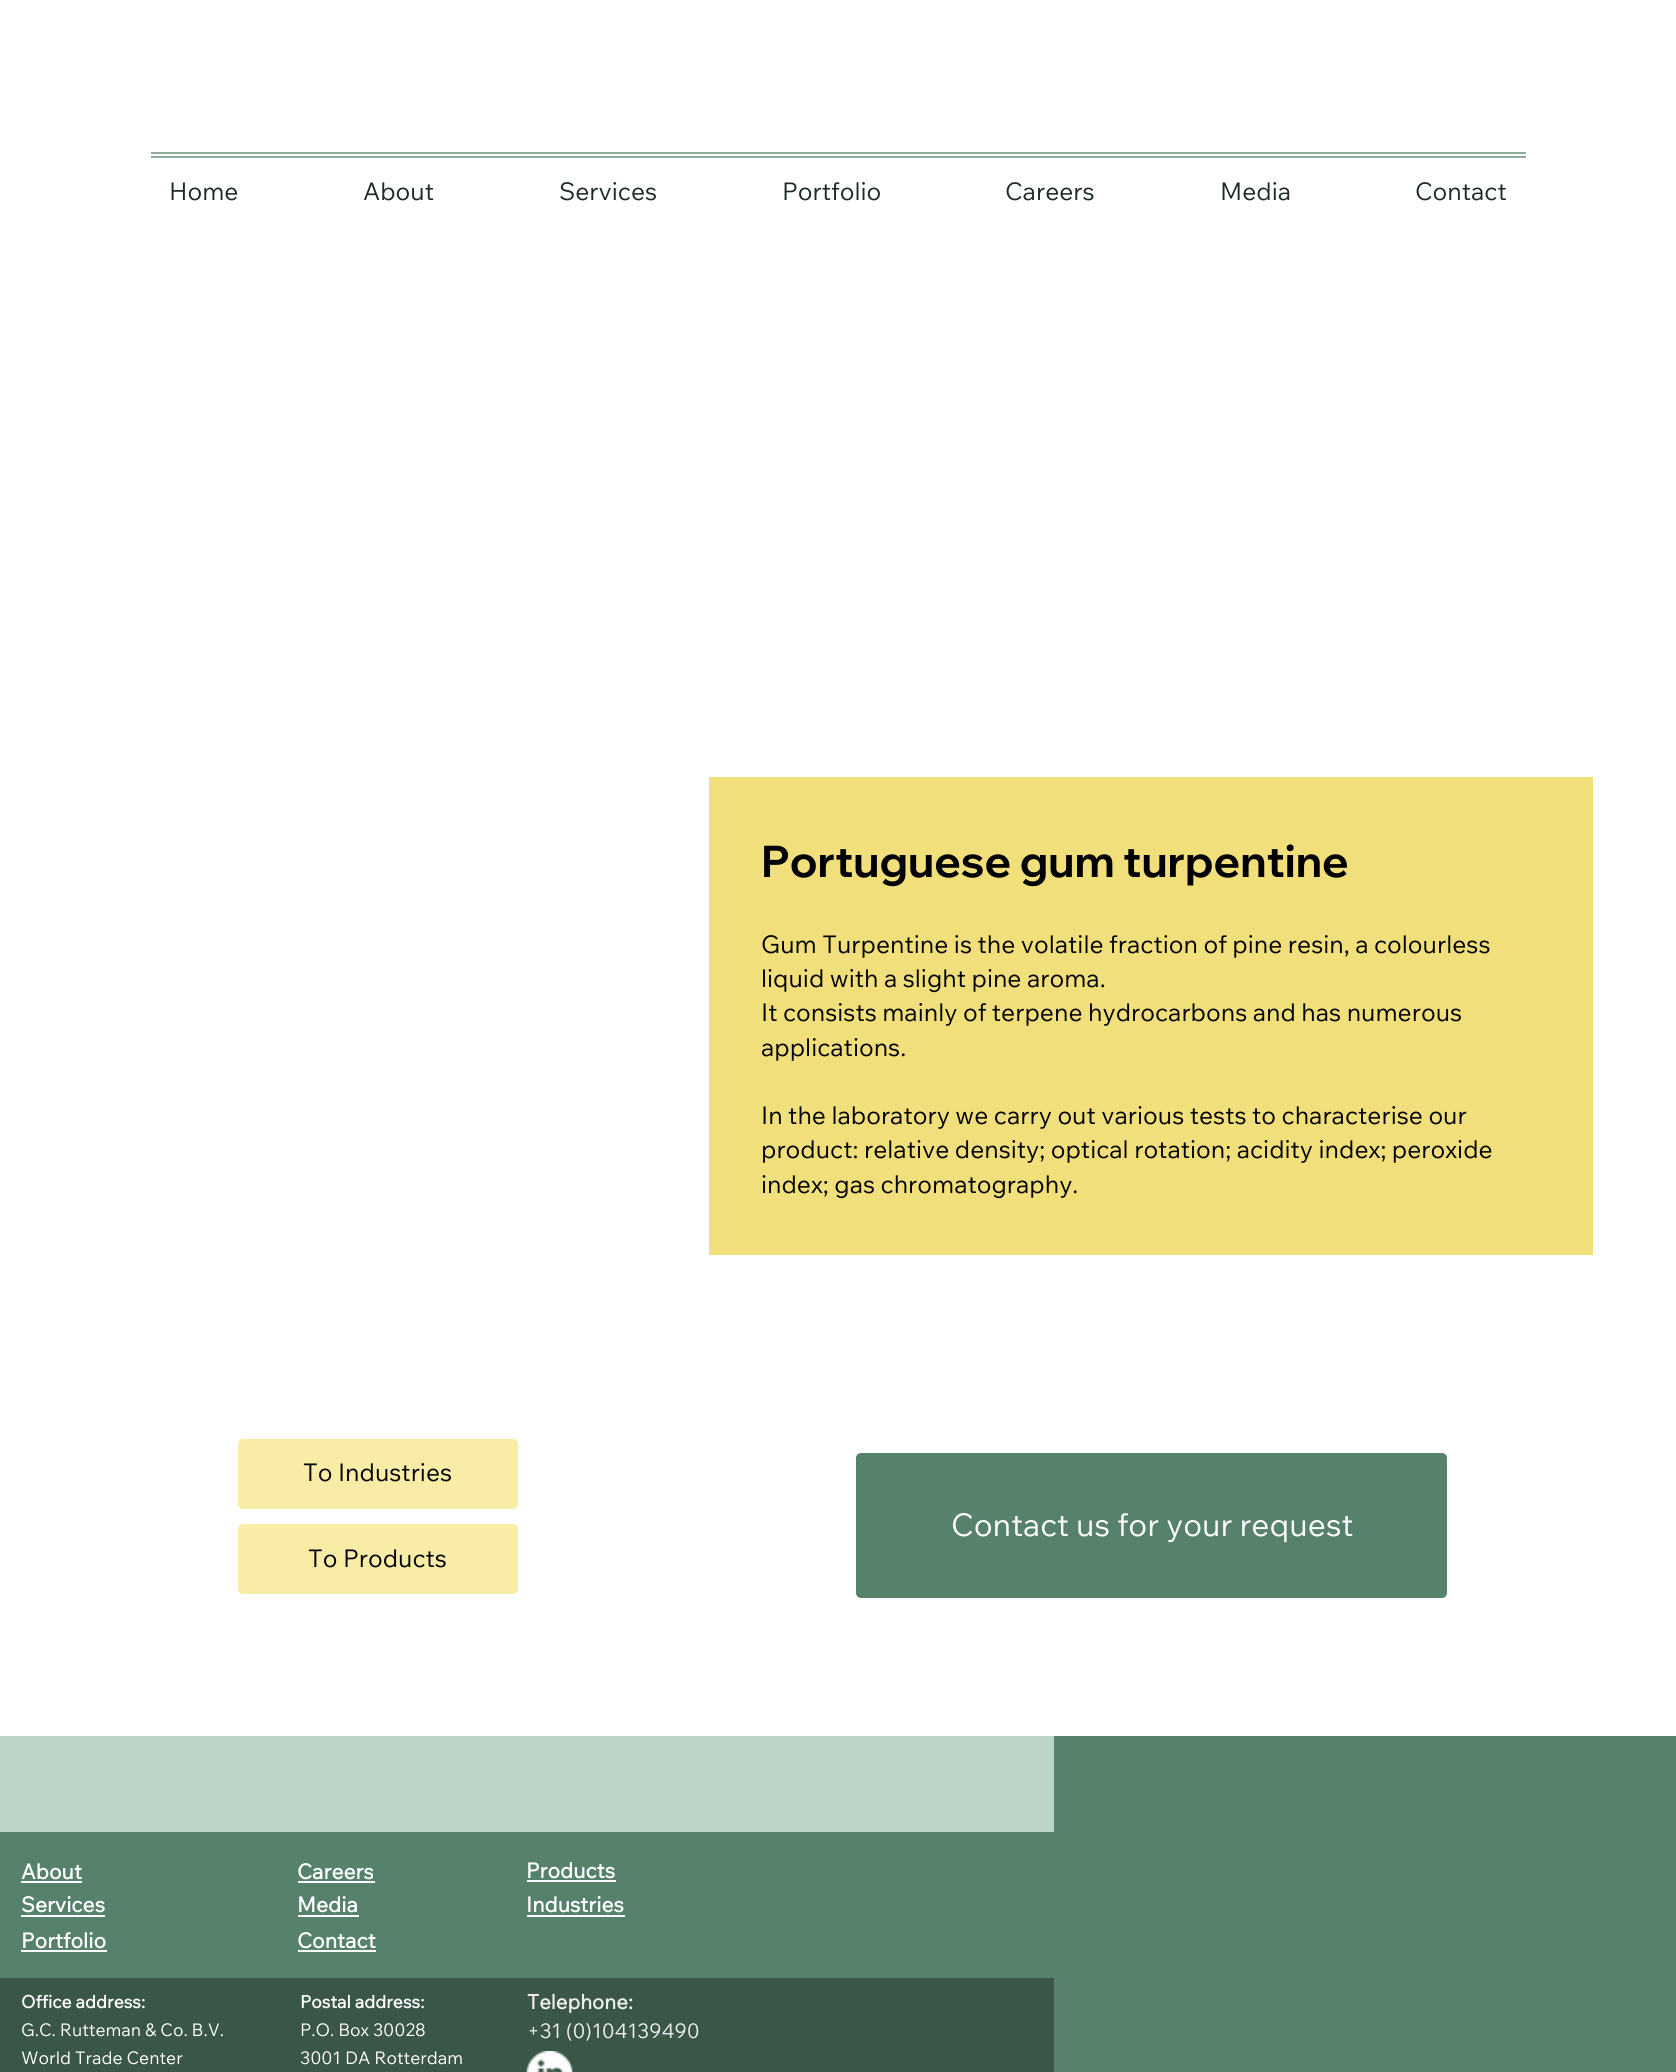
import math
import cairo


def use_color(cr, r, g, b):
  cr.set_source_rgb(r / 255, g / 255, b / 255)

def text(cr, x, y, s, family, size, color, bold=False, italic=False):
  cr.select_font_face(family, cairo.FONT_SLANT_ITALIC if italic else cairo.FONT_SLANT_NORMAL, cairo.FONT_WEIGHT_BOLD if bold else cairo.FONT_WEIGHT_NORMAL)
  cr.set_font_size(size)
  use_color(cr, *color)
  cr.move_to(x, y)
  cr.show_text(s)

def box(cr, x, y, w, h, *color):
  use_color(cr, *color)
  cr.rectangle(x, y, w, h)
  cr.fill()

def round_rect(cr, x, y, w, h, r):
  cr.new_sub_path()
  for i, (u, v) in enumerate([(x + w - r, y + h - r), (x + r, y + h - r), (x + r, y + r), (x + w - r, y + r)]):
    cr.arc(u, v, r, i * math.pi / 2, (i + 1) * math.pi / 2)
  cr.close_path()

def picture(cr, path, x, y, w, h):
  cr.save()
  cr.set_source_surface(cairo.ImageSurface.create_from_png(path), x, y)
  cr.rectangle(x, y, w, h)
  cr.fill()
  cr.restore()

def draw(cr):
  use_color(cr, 255, 255, 255)
  cr.paint()
  box(cr, 151, 152, 1375, 2, 143, 171, 156)
  box(cr, 151, 156, 1375, 2, 143, 171, 156)
  box(cr, 709, 777, 884, 478, 241, 223, 123)
  use_color(cr, 248, 236, 167)
  round_rect(cr, 238, 1439, 280, 70, 5)
  cr.fill()
  round_rect(cr, 238, 1524, 280, 70, 5)
  cr.fill()
  use_color(cr, 86, 129, 107)
  round_rect(cr, 856, 1453, 591, 145, 5)
  cr.fill()
  box(cr, 0, 1736, 1676, 336, 86, 129, 107)
  box(cr, 0, 1736, 1054, 96, 189, 213, 201)
  box(cr, 21, 1881, 61, 2, 255, 255, 255)
  box(cr, 21, 1915, 84, 2, 255, 255, 255)
  box(cr, 21, 1950, 86, 2, 255, 255, 255)
  box(cr, 298, 1881, 77, 2, 255, 255, 255)
  box(cr, 298, 1915, 61, 2, 255, 255, 255)
  box(cr, 298, 1950, 78, 2, 255, 255, 255)
  box(cr, 527, 1880, 89, 2, 255, 255, 255)
  box(cr, 527, 1915, 98, 2, 255, 255, 255)
  box(cr, 0, 1978, 1054, 94, 57, 86, 71)
  picture(cr, "img_01.png", 526, 2051, 47, 21)
  text(cr, 169, 200, "Home", "Wix Madefor Text", 24.5, (29, 43, 36))
  text(cr, 363, 200, "About", "Wix Madefor Text", 24.5, (29, 43, 36))
  text(cr, 559, 200, "Services", "Wix Madefor Text", 24.5, (29, 43, 36))
  text(cr, 782, 200, "Portfolio", "Wix Madefor Text", 24.5, (29, 43, 36))
  text(cr, 1005, 200, "Careers", "Wix Madefor Text", 24.5, (29, 43, 36))
  text(cr, 1220, 200, "Media", "Wix Madefor Text", 24.5, (29, 43, 36))
  text(cr, 1415, 200, "Contact", "Wix Madefor Text", 24.5, (29, 43, 36))
  text(cr, 761, 877, "Portuguese gum turpentine", "Wix Madefor Display", 43.75, (0, 0, 0), bold=True)
  text(cr, 761, 953, "Gum Turpentine is the volatile fraction of pine resin, a colourless", "Wix Madefor Text", 24.5, (0, 0, 0))
  text(cr, 761, 987, "liquid with a slight pine aroma.", "Wix Madefor Text", 24.5, (0, 0, 0))
  text(cr, 761, 1021, "It consists mainly of terpene hydrocarbons and has numerous", "Wix Madefor Text", 24.5, (0, 0, 0))
  text(cr, 761, 1056, "applications.", "Wix Madefor Text", 24.5, (0, 0, 0))
  text(cr, 761, 1124, "In the laboratory we carry out various tests to characterise our", "Wix Madefor Text", 24.5, (0, 0, 0))
  text(cr, 761, 1158, "product: relative density; optical rotation; acidity index; peroxide", "Wix Madefor Text", 24.5, (0, 0, 0))
  text(cr, 761, 1193, "index; gas chromatography.", "Wix Madefor Text", 24.5, (0, 0, 0))
  text(cr, 303, 1481, "To Industries", "Wix Madefor Text", 24.5, (0, 0, 0))
  text(cr, 308, 1567, "To Products", "Wix Madefor Text", 24.5, (0, 0, 0))
  text(cr, 951, 1536, "Contact us for your request", "Wix Madefor Text", 31.5, (255, 255, 255))
  text(cr, 21, 1879, "About", "Wix Madefor Text", 21, (255, 255, 255), bold=True)
  text(cr, 21, 1912, "Services", "Wix Madefor Text", 21, (255, 255, 255), bold=True)
  text(cr, 21, 1948, "Portfolio", "Wix Madefor Text", 21, (255, 255, 255), bold=True)
  text(cr, 297, 1879, "Careers", "Wix Madefor Text", 21, (255, 255, 255), bold=True)
  text(cr, 297, 1912, "Media", "Wix Madefor Text", 21, (255, 255, 255), bold=True)
  text(cr, 297, 1948, "Contact", "Wix Madefor Text", 21, (255, 255, 255), bold=True)
  text(cr, 526, 1878, "Products", "Wix Madefor Text", 21, (255, 255, 255), bold=True)
  text(cr, 526, 1912, "Industries", "Wix Madefor Text", 21, (255, 255, 255), bold=True)
  text(cr, 21, 2008, "Office address:", "Wix Madefor Text", 17.5, (255, 255, 255), bold=True)
  text(cr, 21, 2036, "G.C. Rutteman & Co. B.V.", "Wix Madefor Text", 17.5, (255, 255, 255))
  text(cr, 21, 2064, "World Trade Center", "Wix Madefor Text", 17.5, (255, 255, 255))
  text(cr, 300, 2008, "Postal address:", "Wix Madefor Text", 17.5, (255, 255, 255), bold=True)
  text(cr, 300, 2036, "P.O. Box 30028", "Wix Madefor Text", 17.5, (255, 255, 255))
  text(cr, 300, 2064, "3001 DA Rotterdam", "Wix Madefor Text", 17.5, (255, 255, 255))
  text(cr, 527, 2009, "Telephone:", "Wix Madefor Text", 20.25, (238, 238, 238), bold=True)
  text(cr, 527, 2038, "+31 (0)104139490", "Wix Madefor Text", 20.25, (238, 238, 238))


surface = cairo.ImageSurface(cairo.FORMAT_RGB24, 1676, 2072)
cr = cairo.Context(surface)
options = cairo.FontOptions()
options.set_hint_metrics(cairo.HINT_METRICS_OFF)
options.set_hint_style(cairo.HINT_STYLE_NONE)
cr.set_font_options(options)
cr.set_miter_limit(4)
draw(cr)
surface.write_to_png("out.png")
